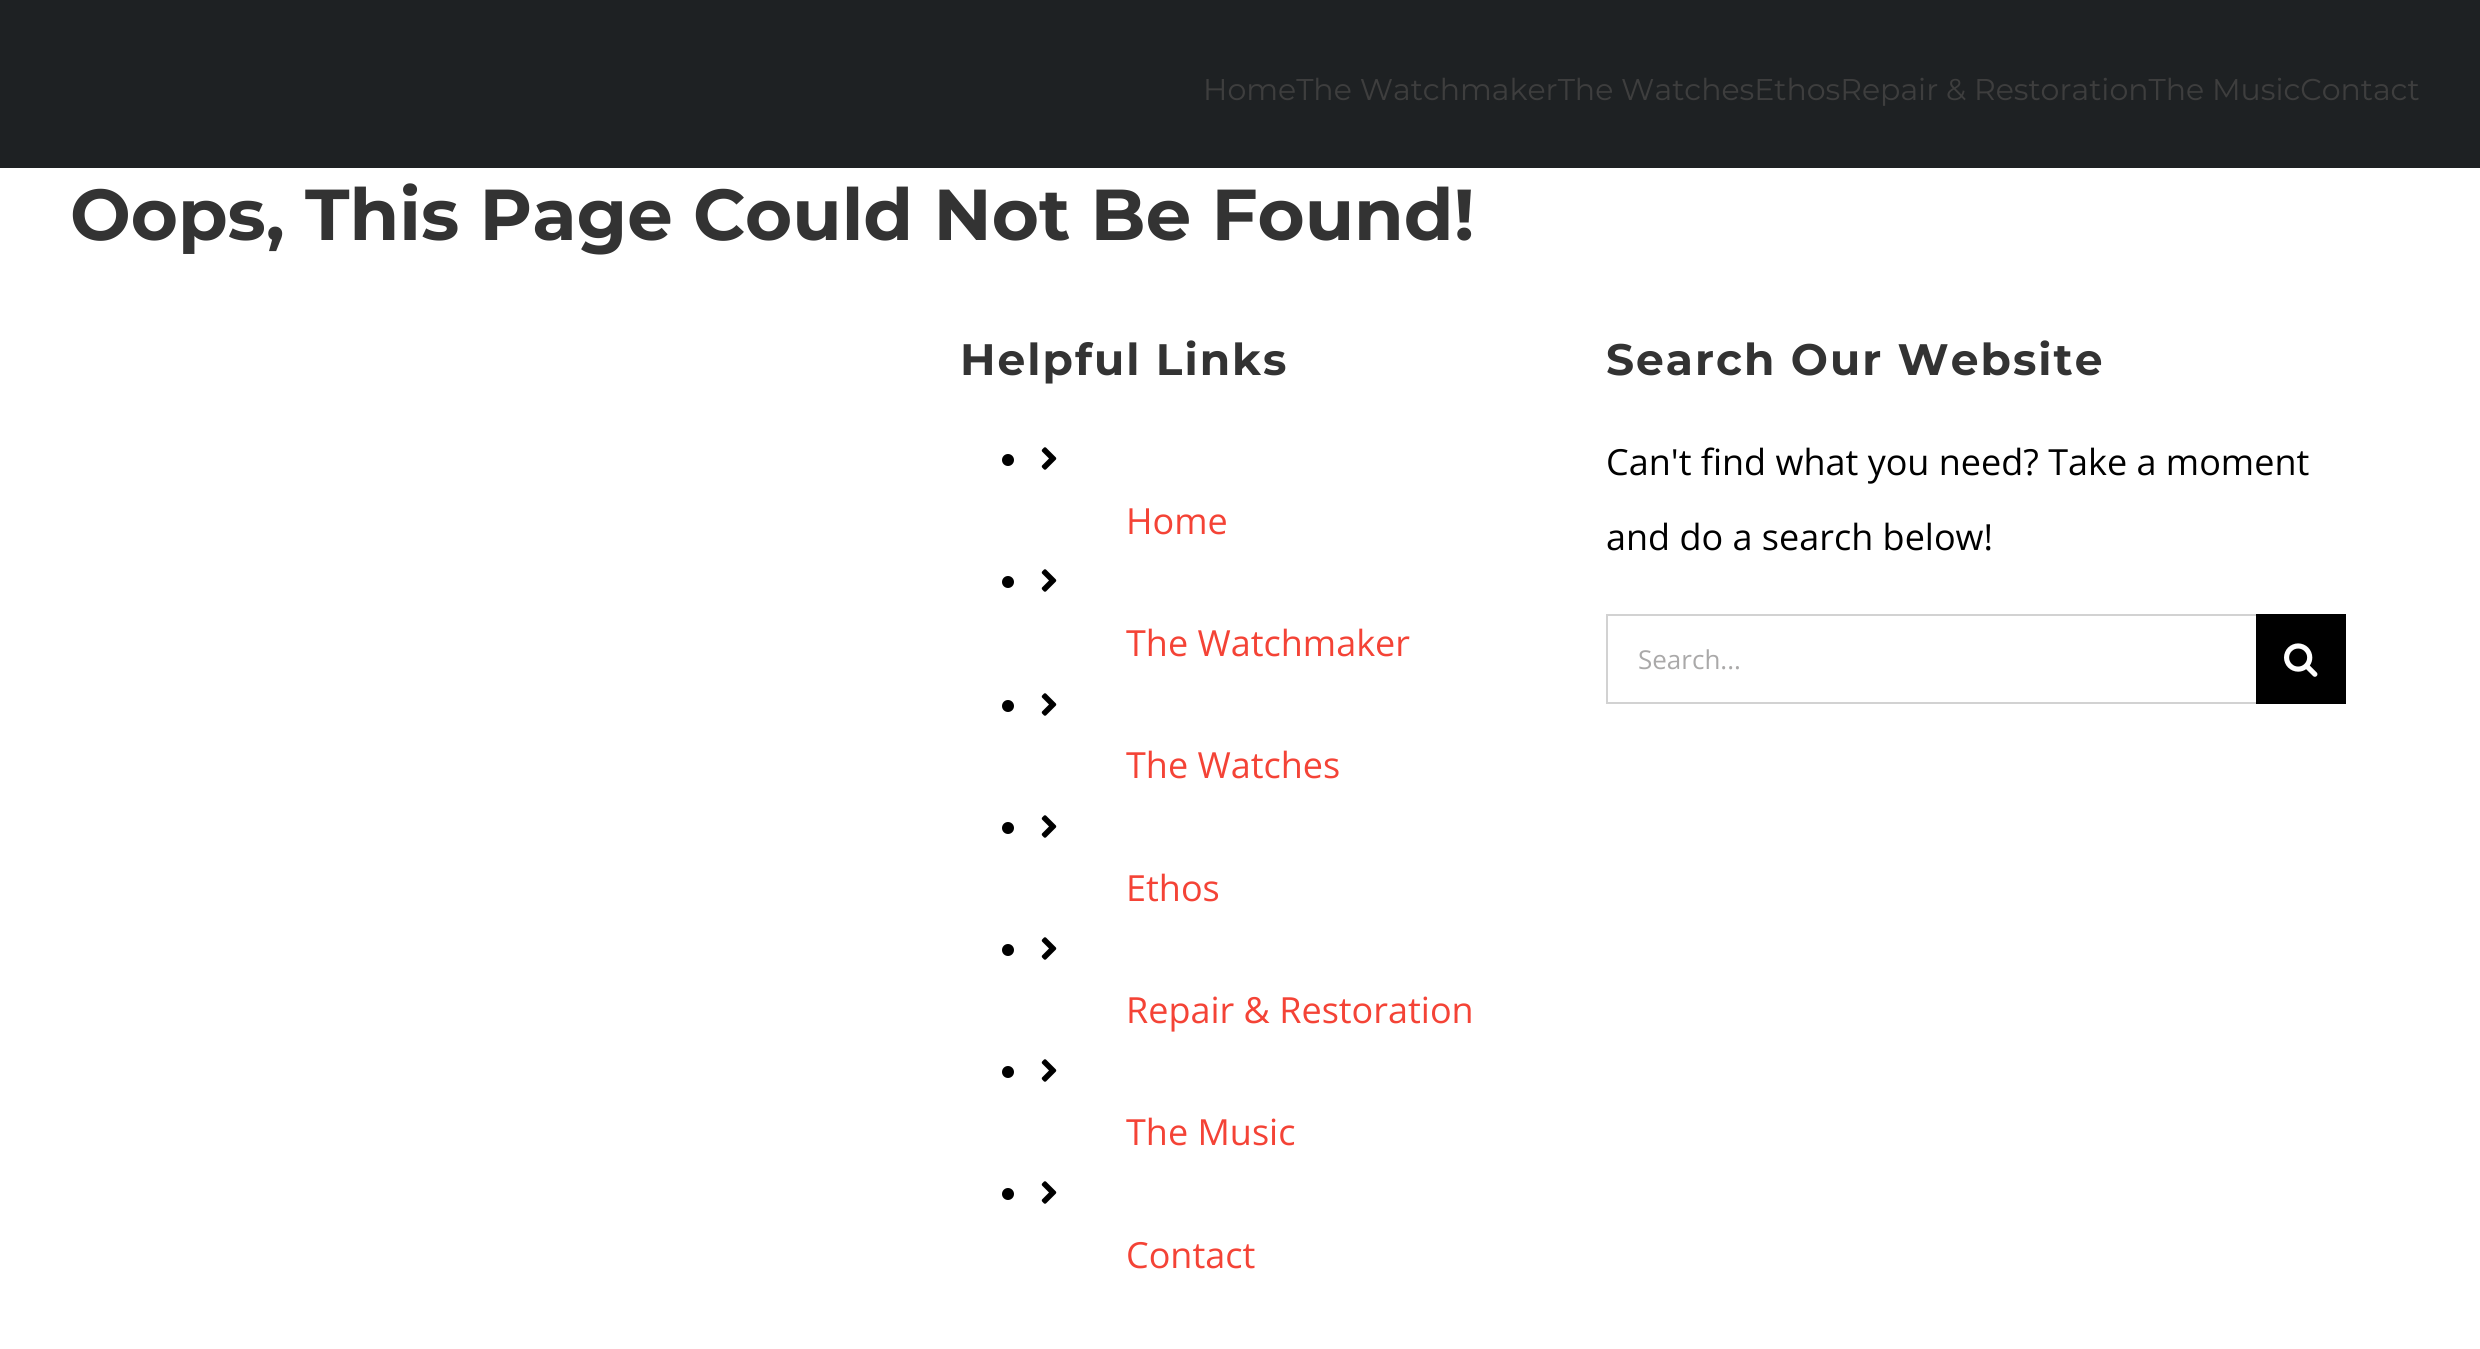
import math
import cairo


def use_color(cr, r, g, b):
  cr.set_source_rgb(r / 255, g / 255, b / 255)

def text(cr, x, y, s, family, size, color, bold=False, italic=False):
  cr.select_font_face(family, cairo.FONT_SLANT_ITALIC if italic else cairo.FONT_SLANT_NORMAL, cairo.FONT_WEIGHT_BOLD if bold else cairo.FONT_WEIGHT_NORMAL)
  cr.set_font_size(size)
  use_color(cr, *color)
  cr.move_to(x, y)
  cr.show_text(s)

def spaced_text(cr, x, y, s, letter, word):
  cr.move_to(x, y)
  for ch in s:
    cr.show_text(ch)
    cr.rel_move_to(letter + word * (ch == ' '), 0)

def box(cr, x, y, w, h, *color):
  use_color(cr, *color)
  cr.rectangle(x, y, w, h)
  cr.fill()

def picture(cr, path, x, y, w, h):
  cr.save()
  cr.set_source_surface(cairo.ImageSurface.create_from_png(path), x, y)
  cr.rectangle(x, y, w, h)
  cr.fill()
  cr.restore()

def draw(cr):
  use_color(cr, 255, 255, 255)
  cr.paint()
  box(cr, 0, 0, 2480, 168, 30, 33, 35)
  use_color(cr, 0, 0, 0)
  cr.arc(1008, 460, 6, 0, 2 * math.pi)
  cr.fill()
  picture(cr, "img_01.png", 1041, 447, 16, 23)
  cr.arc(1008, 582, 6, 0, 2 * math.pi)
  cr.fill()
  picture(cr, "img_01.png", 1041, 569, 16, 23)
  cr.arc(1008, 706, 6, 0, 2 * math.pi)
  cr.fill()
  picture(cr, "img_01.png", 1041, 693, 16, 23)
  cr.arc(1008, 828, 6, 0, 2 * math.pi)
  cr.fill()
  picture(cr, "img_01.png", 1041, 815, 16, 23)
  cr.arc(1008, 950, 6, 0, 2 * math.pi)
  cr.fill()
  picture(cr, "img_01.png", 1041, 937, 16, 23)
  cr.arc(1008, 1072, 6, 0, 2 * math.pi)
  cr.fill()
  picture(cr, "img_01.png", 1041, 1059, 16, 23)
  cr.arc(1008, 1194, 6, 0, 2 * math.pi)
  cr.fill()
  picture(cr, "img_01.png", 1041, 1181, 16, 23)
  box(cr, 1606, 614, 650, 2, 210, 210, 210)
  box(cr, 1606, 702, 650, 2, 210, 210, 210)
  box(cr, 1606, 614, 2, 90, 210, 210, 210)
  box(cr, 2256, 614, 90, 90, 0, 0, 0)
  picture(cr, "img_02.png", 2284, 643, 34, 34)
  text(cr, 1203, 100, "HomeThe WatchmakerThe WatchesEthosRepair & RestorationThe MusicContact", "Montserrat", 30, (62, 62, 62))
  text(cr, 70, 240, "Oops, This Page Could Not Be Found!", "Montserrat", 72, (51, 51, 51), bold=True)
  cr.set_font_size(44)
  spaced_text(cr, 960, 375, "Helpful Links", 2, 0)
  text(cr, 1126, 534, "Home", "Open Sans", 36, (244, 67, 54))
  text(cr, 1126, 656, "The Watchmaker", "Open Sans", 36, (244, 67, 54))
  text(cr, 1126, 778, "The Watches", "Open Sans", 36, (244, 67, 54))
  text(cr, 1126, 901, "Ethos", "Open Sans", 36, (244, 67, 54))
  text(cr, 1126, 1023, "Repair & Restoration", "Open Sans", 36, (244, 67, 54))
  text(cr, 1126, 1145, "The Music", "Open Sans", 36, (244, 67, 54))
  text(cr, 1126, 1268, "Contact", "Open Sans", 36, (244, 67, 54))
  cr.select_font_face("Montserrat", cairo.FONT_SLANT_NORMAL, cairo.FONT_WEIGHT_BOLD)
  cr.set_font_size(44)
  use_color(cr, 51, 51, 51)
  spaced_text(cr, 1606, 375, "Search Our Website", 2, 0)
  text(cr, 1606, 475, "Can't find what you need? Take a moment", "Open Sans", 36, (0, 0, 0))
  text(cr, 1606, 550, "and do a search below!", "Open Sans", 36, (0, 0, 0))
  text(cr, 1638, 669, "Search...", "Open Sans", 26, (170, 169, 169))


surface = cairo.ImageSurface(cairo.FORMAT_RGB24, 2480, 1349)
cr = cairo.Context(surface)
options = cairo.FontOptions()
options.set_hint_metrics(cairo.HINT_METRICS_OFF)
options.set_hint_style(cairo.HINT_STYLE_NONE)
cr.set_font_options(options)
cr.set_miter_limit(4)
draw(cr)
surface.write_to_png("out.png")
